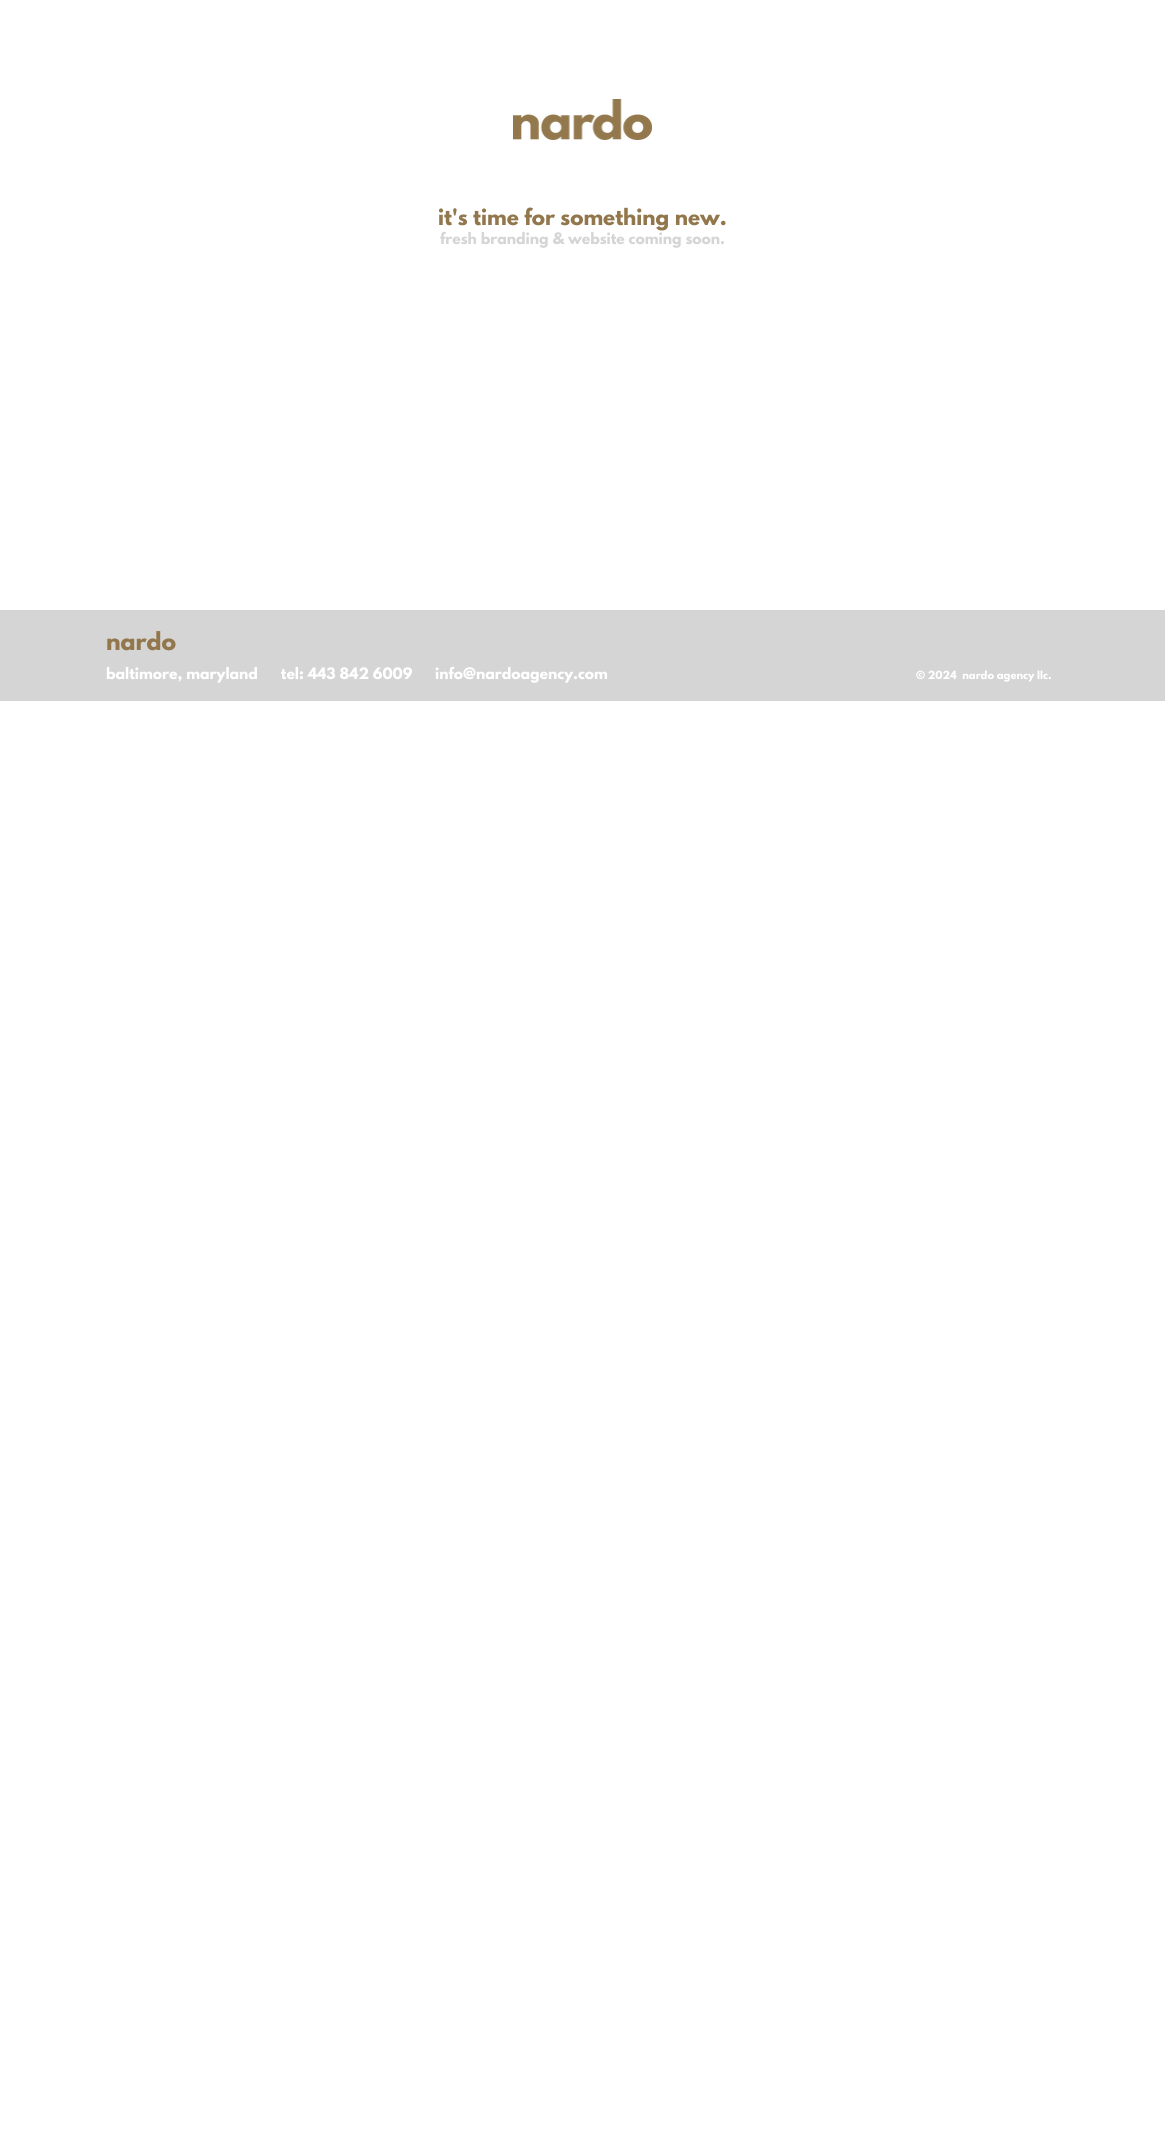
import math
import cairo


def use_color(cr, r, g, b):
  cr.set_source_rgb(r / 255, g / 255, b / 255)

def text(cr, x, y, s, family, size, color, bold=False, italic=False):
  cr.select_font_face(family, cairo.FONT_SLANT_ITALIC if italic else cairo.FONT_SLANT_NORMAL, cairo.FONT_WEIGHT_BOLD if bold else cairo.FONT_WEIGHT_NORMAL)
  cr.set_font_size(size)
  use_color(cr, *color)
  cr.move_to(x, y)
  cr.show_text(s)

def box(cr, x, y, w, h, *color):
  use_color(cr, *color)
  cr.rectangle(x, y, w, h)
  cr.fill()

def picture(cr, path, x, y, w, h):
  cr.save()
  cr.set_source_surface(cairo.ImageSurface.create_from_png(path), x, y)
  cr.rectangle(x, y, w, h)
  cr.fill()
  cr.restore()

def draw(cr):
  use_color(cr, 255, 255, 255)
  cr.paint()
  picture(cr, "img_01.png", 513, 99, 139, 41)
  box(cr, 0, 610, 1165, 91, 213, 213, 213)
  text(cr, 438, 225, "it's time for something new.", "League Spartan", 20, (146, 119, 76), bold=True)
  text(cr, 440, 244, "fresh branding & website coming soon.", "League Spartan", 14, (213, 213, 213), bold=True)
  text(cr, 106, 650, "nardo", "League Spartan", 22, (146, 119, 76), bold=True)
  text(cr, 106, 679, "baltimore, maryland      tel: 443 842 6009", "League Spartan", 14, (255, 255, 255), bold=True)
  text(cr, 435, 679, "info@nardoagency.com", "League Spartan", 14, (255, 255, 255), bold=True)
  text(cr, 916, 679, "© 2024  nardo agency llc.", "League Spartan", 10, (255, 255, 255), bold=True)


surface = cairo.ImageSurface(cairo.FORMAT_RGB24, 1165, 2131)
cr = cairo.Context(surface)
options = cairo.FontOptions()
options.set_hint_metrics(cairo.HINT_METRICS_OFF)
options.set_hint_style(cairo.HINT_STYLE_NONE)
cr.set_font_options(options)
cr.set_miter_limit(4)
draw(cr)
surface.write_to_png("out.png")
